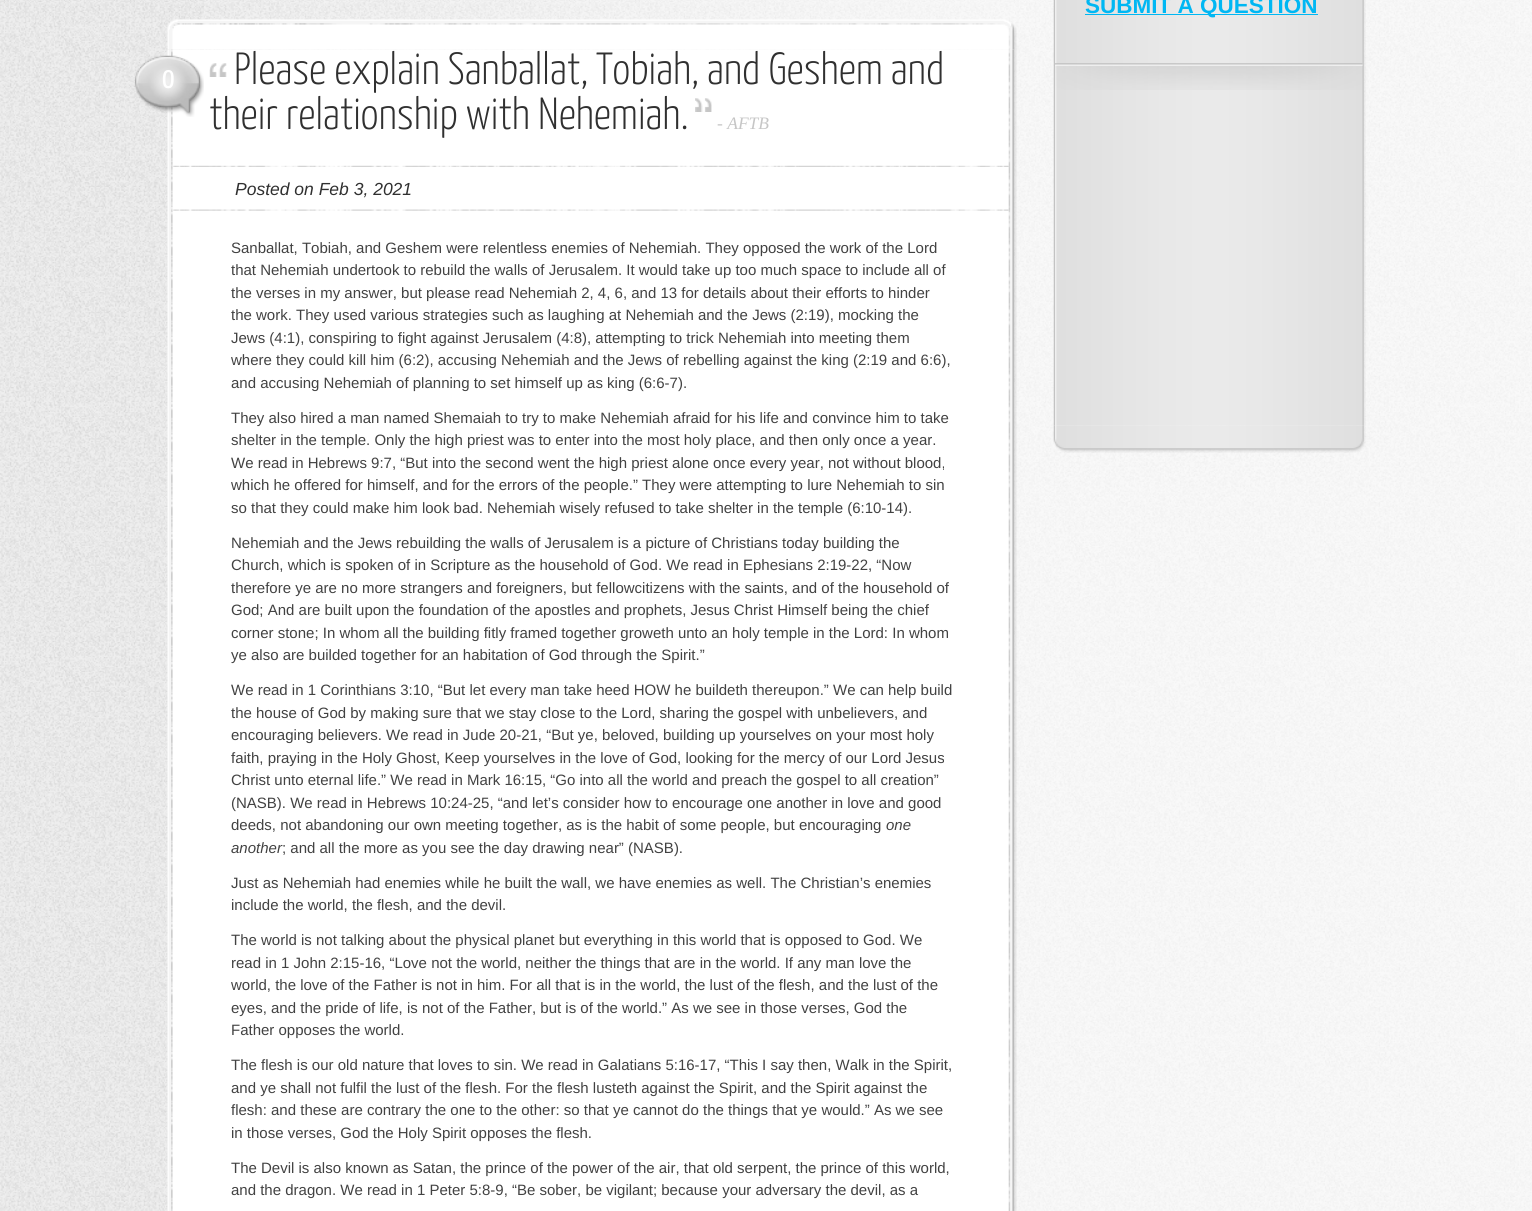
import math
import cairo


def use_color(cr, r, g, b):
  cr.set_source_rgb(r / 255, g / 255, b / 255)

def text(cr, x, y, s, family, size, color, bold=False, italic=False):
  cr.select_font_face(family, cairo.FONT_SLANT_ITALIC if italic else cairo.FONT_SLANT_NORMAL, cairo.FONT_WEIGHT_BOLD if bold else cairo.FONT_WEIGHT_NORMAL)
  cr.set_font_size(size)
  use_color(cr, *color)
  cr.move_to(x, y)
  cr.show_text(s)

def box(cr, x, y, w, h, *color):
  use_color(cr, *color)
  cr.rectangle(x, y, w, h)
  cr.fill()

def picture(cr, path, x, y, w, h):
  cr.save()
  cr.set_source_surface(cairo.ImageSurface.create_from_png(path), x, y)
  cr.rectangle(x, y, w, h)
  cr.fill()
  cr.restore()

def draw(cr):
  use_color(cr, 255, 255, 255)
  cr.paint()
  picture(cr, "img_01.png", 0, 0, 1532, 1211)
  picture(cr, "img_02.png", 204, 0, 1328, 1211)
  picture(cr, "img_03.png", 1053, 425, 313, 28)
  picture(cr, "img_04.png", 1053, 0, 313, 426)
  box(cr, 1085, 14, 233, 1, 0, 183, 243)
  picture(cr, "img_05.png", 1055, 63, 308, 27)
  picture(cr, "img_06.png", 167, 19, 850, 31)
  picture(cr, "img_07.png", 167, 49, 850, 1162)
  picture(cr, "img_08.png", 134, 55, 70, 62)
  picture(cr, "img_09.png", 209, 63, 18, 14)
  picture(cr, "img_10.png", 695, 98, 17, 14)
  picture(cr, "img_11.png", 173, 165, 836, 2)
  picture(cr, "img_12.png", 173, 209, 836, 2)
  text(cr, 1085, 13, "SUBMIT A QUESTION", "Liberation Sans", 22.5, (0, 183, 243), bold=True)
  text(cr, 162, 88, "0", "Yanone Kaffeesatz", 30, (255, 255, 255))
  text(cr, 234, 84, "Please explain Sanballat, Tobiah, and Geshem and", "Yanone Kaffeesatz Light", 45, (48, 48, 48))
  text(cr, 209, 129, "their relationship with Nehemiah.", "Yanone Kaffeesatz Light", 45, (48, 48, 48))
  text(cr, 717, 129, "- AFTB", "Liberation Serif", 17.5, (198, 198, 198), italic=True)
  text(cr, 235, 195, "Posted on Feb 3, 2021", "Liberation Sans", 17.5, (48, 48, 48), italic=True)
  text(cr, 231, 253, "Sanballat, Tobiah, and Geshem were relentless enemies of Nehemiah. They opposed the work of the Lord", "Liberation Sans", 15, (66, 66, 66))
  text(cr, 231, 275, "that Nehemiah undertook to rebuild the walls of Jerusalem. It would take up too much space to include all of", "Liberation Sans", 15, (66, 66, 66))
  text(cr, 231, 298, "the verses in my answer, but please read Nehemiah 2, 4, 6, and 13 for details about their efforts to hinder", "Liberation Sans", 15, (66, 66, 66))
  text(cr, 231, 320, "the work. They used various strategies such as laughing at Nehemiah and the Jews (2:19), mocking the", "Liberation Sans", 15, (66, 66, 66))
  text(cr, 231, 343, "Jews (4:1), conspiring to fight against Jerusalem (4:8), attempting to trick Nehemiah into meeting them", "Liberation Sans", 15, (66, 66, 66))
  text(cr, 231, 365, "where they could kill him (6:2), accusing Nehemiah and the Jews of rebelling against the king (2:19 and 6:6),", "Liberation Sans", 15, (66, 66, 66))
  text(cr, 231, 388, "and accusing Nehemiah of planning to set himself up as king (6:6-7).", "Liberation Sans", 15, (66, 66, 66))
  text(cr, 231, 423, "They also hired a man named Shemaiah to try to make Nehemiah afraid for his life and convince him to take", "Liberation Sans", 15, (66, 66, 66))
  text(cr, 231, 445, "shelter in the temple. Only the high priest was to enter into the most holy place, and then only once a year.", "Liberation Sans", 15, (66, 66, 66))
  text(cr, 231, 468, "We read in Hebrews 9:7, “But into the second went the high priest alone once every year, not without blood,", "Liberation Sans", 15, (66, 66, 66))
  text(cr, 231, 490, "which he offered for himself, and for the errors of the people.” They were attempting to lure Nehemiah to sin", "Liberation Sans", 15, (66, 66, 66))
  text(cr, 231, 513, "so that they could make him look bad. Nehemiah wisely refused to take shelter in the temple (6:10-14).", "Liberation Sans", 15, (66, 66, 66))
  text(cr, 231, 548, "Nehemiah and the Jews rebuilding the walls of Jerusalem is a picture of Christians today building the", "Liberation Sans", 15, (66, 66, 66))
  text(cr, 231, 570, "Church, which is spoken of in Scripture as the household of God. We read in Ephesians 2:19-22, “Now", "Liberation Sans", 15, (66, 66, 66))
  text(cr, 231, 593, "therefore ye are no more strangers and foreigners, but fellowcitizens with the saints, and of the household of", "Liberation Sans", 15, (66, 66, 66))
  text(cr, 231, 615, "God; And are built upon the foundation of the apostles and prophets, Jesus Christ Himself being the chief", "Liberation Sans", 15, (66, 66, 66))
  text(cr, 231, 638, "corner stone; In whom all the building fitly framed together groweth unto an holy temple in the Lord: In whom", "Liberation Sans", 15, (66, 66, 66))
  text(cr, 231, 660, "ye also are builded together for an habitation of God through the Spirit.”", "Liberation Sans", 15, (66, 66, 66))
  text(cr, 231, 695, "We read in 1 Corinthians 3:10, “But let every man take heed HOW he buildeth thereupon.” We can help build", "Liberation Sans", 15, (66, 66, 66))
  text(cr, 231, 718, "the house of God by making sure that we stay close to the Lord, sharing the gospel with unbelievers, and", "Liberation Sans", 15, (66, 66, 66))
  text(cr, 231, 740, "encouraging believers. We read in Jude 20-21, “But ye, beloved, building up yourselves on your most holy", "Liberation Sans", 15, (66, 66, 66))
  text(cr, 231, 763, "faith, praying in the Holy Ghost, Keep yourselves in the love of God, looking for the mercy of our Lord Jesus", "Liberation Sans", 15, (66, 66, 66))
  text(cr, 231, 785, "Christ unto eternal life.” We read in Mark 16:15, “Go into all the world and preach the gospel to all creation”", "Liberation Sans", 15, (66, 66, 66))
  text(cr, 231, 808, "(NASB). We read in Hebrews 10:24-25, “and let’s consider how to encourage one another in love and good", "Liberation Sans", 15, (66, 66, 66))
  text(cr, 231, 830, "deeds, not abandoning our own meeting together, as is the habit of some people, but encouraging", "Liberation Sans", 15, (66, 66, 66))
  text(cr, 886, 830, "one", "Liberation Sans", 15, (66, 66, 66), italic=True)
  text(cr, 231, 853, "another", "Liberation Sans", 15, (66, 66, 66), italic=True)
  text(cr, 282, 853, "; and all the more as you see the day drawing near” (NASB).", "Liberation Sans", 15, (66, 66, 66))
  text(cr, 231, 888, "Just as Nehemiah had enemies while he built the wall, we have enemies as well. The Christian’s enemies", "Liberation Sans", 15, (66, 66, 66))
  text(cr, 231, 910, "include the world, the flesh, and the devil.", "Liberation Sans", 15, (66, 66, 66))
  text(cr, 231, 945, "The world is not talking about the physical planet but everything in this world that is opposed to God. We", "Liberation Sans", 15, (66, 66, 66))
  text(cr, 231, 968, "read in 1 John 2:15-16, “Love not the world, neither the things that are in the world. If any man love the", "Liberation Sans", 15, (66, 66, 66))
  text(cr, 231, 990, "world, the love of the Father is not in him. For all that is in the world, the lust of the flesh, and the lust of the", "Liberation Sans", 15, (66, 66, 66))
  text(cr, 231, 1013, "eyes, and the pride of life, is not of the Father, but is of the world.” As we see in those verses, God the", "Liberation Sans", 15, (66, 66, 66))
  text(cr, 231, 1035, "Father opposes the world.", "Liberation Sans", 15, (66, 66, 66))
  text(cr, 231, 1070, "The flesh is our old nature that loves to sin. We read in Galatians 5:16-17, “This I say then, Walk in the Spirit,", "Liberation Sans", 15, (66, 66, 66))
  text(cr, 231, 1093, "and ye shall not fulfil the lust of the flesh. For the flesh lusteth against the Spirit, and the Spirit against the", "Liberation Sans", 15, (66, 66, 66))
  text(cr, 231, 1115, "flesh: and these are contrary the one to the other: so that ye cannot do the things that ye would.” As we see", "Liberation Sans", 15, (66, 66, 66))
  text(cr, 231, 1138, "in those verses, God the Holy Spirit opposes the flesh.", "Liberation Sans", 15, (66, 66, 66))
  text(cr, 231, 1173, "The Devil is also known as Satan, the prince of the power of the air, that old serpent, the prince of this world,", "Liberation Sans", 15, (66, 66, 66))
  text(cr, 231, 1195, "and the dragon. We read in 1 Peter 5:8-9, “Be sober, be vigilant; because your adversary the devil, as a", "Liberation Sans", 15, (66, 66, 66))


surface = cairo.ImageSurface(cairo.FORMAT_RGB24, 1532, 1211)
cr = cairo.Context(surface)
options = cairo.FontOptions()
options.set_hint_metrics(cairo.HINT_METRICS_OFF)
options.set_hint_style(cairo.HINT_STYLE_NONE)
cr.set_font_options(options)
cr.set_miter_limit(4)
draw(cr)
surface.write_to_png("out.png")
